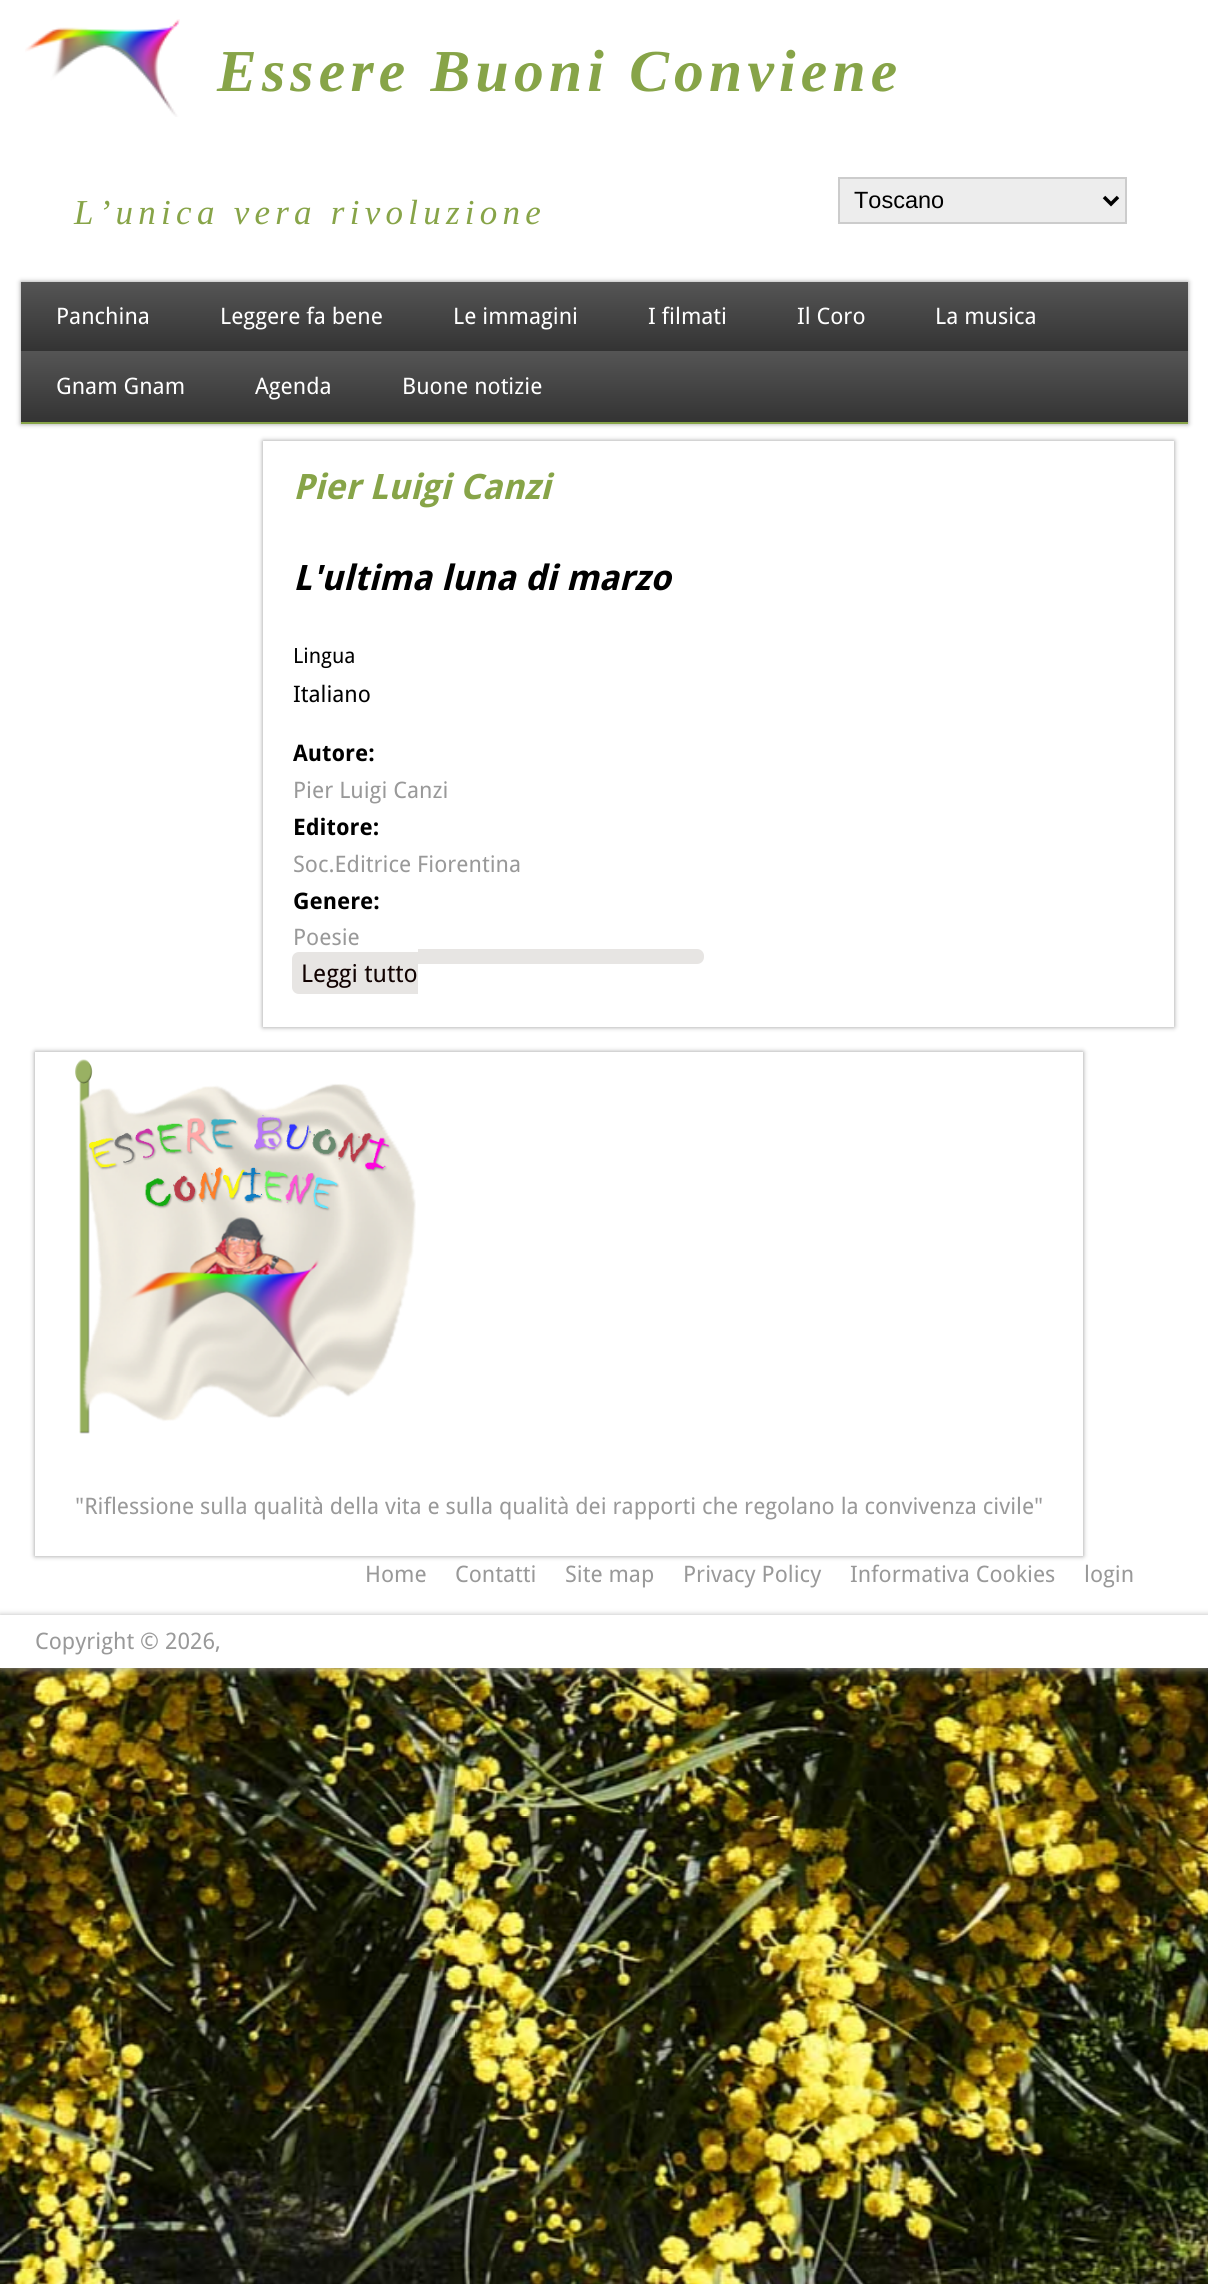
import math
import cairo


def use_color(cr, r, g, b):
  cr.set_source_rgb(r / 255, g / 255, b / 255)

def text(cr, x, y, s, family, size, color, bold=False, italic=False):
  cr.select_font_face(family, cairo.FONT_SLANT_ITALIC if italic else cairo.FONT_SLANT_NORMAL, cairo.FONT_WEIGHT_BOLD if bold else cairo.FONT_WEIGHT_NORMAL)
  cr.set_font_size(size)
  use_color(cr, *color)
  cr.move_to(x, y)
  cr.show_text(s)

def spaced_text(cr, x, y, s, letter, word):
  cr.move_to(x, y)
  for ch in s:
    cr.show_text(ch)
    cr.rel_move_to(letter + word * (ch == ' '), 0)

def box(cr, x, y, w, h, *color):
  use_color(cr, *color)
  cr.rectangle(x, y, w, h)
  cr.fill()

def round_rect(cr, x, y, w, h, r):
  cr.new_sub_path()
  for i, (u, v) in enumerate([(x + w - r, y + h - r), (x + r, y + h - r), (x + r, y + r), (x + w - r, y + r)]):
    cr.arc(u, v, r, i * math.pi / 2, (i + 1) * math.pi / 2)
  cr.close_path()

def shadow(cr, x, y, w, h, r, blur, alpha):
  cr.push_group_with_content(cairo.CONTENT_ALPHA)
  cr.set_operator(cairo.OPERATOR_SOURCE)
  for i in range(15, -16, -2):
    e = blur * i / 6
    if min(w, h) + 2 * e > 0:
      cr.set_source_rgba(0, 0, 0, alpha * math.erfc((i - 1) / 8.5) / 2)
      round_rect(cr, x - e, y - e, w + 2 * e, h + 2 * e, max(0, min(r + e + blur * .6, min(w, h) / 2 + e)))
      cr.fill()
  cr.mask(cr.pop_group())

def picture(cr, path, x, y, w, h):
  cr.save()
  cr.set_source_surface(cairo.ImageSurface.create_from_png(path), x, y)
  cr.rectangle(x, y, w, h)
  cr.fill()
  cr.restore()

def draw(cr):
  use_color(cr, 255, 255, 255)
  cr.paint()
  picture(cr, "img_01.png", 0, 1668, 1208, 616)
  use_color(cr, 153, 153, 153)
  shadow(cr, 0, 0, 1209, 1668, 0, 5, 1)
  box(cr, 0, 0, 1208, 1668, 255, 255, 255)
  picture(cr, "img_02.png", 25, 19, 155, 98)
  use_color(cr, 237, 237, 237)
  cr.rectangle(839, 178, 287, 45)
  cr.fill_preserve()
  use_color(cr, 204, 204, 204)
  cr.stroke()
  cr.new_path()
  cr.move_to(1104, 197)
  cr.line_to(1111, 204)
  cr.line_to(1118, 197)
  use_color(cr, 0, 0, 0)
  cr.set_line_width(3.5)
  cr.stroke()
  use_color(cr, 153, 153, 153)
  shadow(cr, 21, 282, 1167, 142, 0, 2.5, 1)
  gradient = cairo.LinearGradient(605, 282, 605, 492)
  gradient.add_color_stop_rgba(0, 0.333, 0.333, 0.333, 1)
  gradient.add_color_stop_rgba(0.33, 0.2, 0.2, 0.2, 1)
  gradient.add_color_stop_rgba(0.33, 0.333, 0.333, 0.333, 1)
  gradient.add_color_stop_rgba(0.67, 0.2, 0.2, 0.2, 1)
  gradient.add_color_stop_rgba(0.67, 0.333, 0.333, 0.333, 1)
  gradient.add_color_stop_rgba(1, 0.2, 0.2, 0.2, 1)
  cr.set_source(gradient)
  cr.rectangle(21, 282, 1167, 140)
  cr.fill()
  box(cr, 21, 422, 1167, 2, 135, 164, 72)
  cr.save()
  cr.set_fill_rule(cairo.FILL_RULE_EVEN_ODD)
  cr.new_path()
  cr.move_to(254, 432)
  cr.line_to(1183, 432)
  cr.line_to(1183, 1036)
  cr.line_to(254, 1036)
  cr.close_path()
  cr.move_to(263, 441)
  cr.line_to(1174, 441)
  cr.line_to(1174, 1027)
  cr.line_to(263, 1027)
  cr.close_path()
  cr.clip()
  use_color(cr, 153, 153, 153)
  shadow(cr, 263, 441, 911, 586, 0, 2.5, 1)
  cr.restore()
  use_color(cr, 231, 229, 227)
  cr.new_path()
  cr.move_to(299, 952)
  cr.line_to(418, 952)
  cr.line_to(418, 994)
  cr.line_to(299, 994)
  cr.curve_to(295, 994, 292, 991, 292, 987)
  cr.line_to(292, 959)
  cr.curve_to(292, 955, 295, 952, 299, 952)
  cr.close_path()
  cr.fill()
  cr.new_path()
  cr.move_to(418, 949)
  cr.line_to(697, 949)
  cr.curve_to(701, 949, 704, 952, 704, 956)
  cr.line_to(704, 957)
  cr.curve_to(704, 961, 701, 964, 697, 964)
  cr.line_to(418, 964)
  cr.close_path()
  cr.fill()
  cr.save()
  cr.set_fill_rule(cairo.FILL_RULE_EVEN_ODD)
  cr.new_path()
  cr.move_to(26, 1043)
  cr.line_to(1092, 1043)
  cr.line_to(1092, 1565)
  cr.line_to(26, 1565)
  cr.close_path()
  cr.move_to(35, 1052)
  cr.line_to(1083, 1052)
  cr.line_to(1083, 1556)
  cr.line_to(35, 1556)
  cr.close_path()
  cr.clip()
  use_color(cr, 153, 153, 153)
  shadow(cr, 35, 1052, 1048, 504, 0, 2.5, 1)
  cr.restore()
  picture(cr, "img_03.png", 75, 1059, 341, 375)
  cr.save()
  cr.rectangle(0, 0, 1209, 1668)
  cr.clip()
  cr.set_fill_rule(cairo.FILL_RULE_EVEN_ODD)
  cr.new_path()
  cr.move_to(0, 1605)
  cr.line_to(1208, 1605)
  cr.line_to(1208, 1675)
  cr.line_to(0, 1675)
  cr.close_path()
  cr.move_to(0, 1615)
  cr.line_to(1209, 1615)
  cr.line_to(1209, 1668)
  cr.line_to(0, 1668)
  cr.close_path()
  cr.clip()
  use_color(cr, 204, 204, 204)
  shadow(cr, 0, 1614, 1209, 52, 0, 2.5, 1)
  cr.restore()
  cr.set_source_rgba(1, 1, 1, 0.8)
  cr.rectangle(0, 1615, 1208, 53)
  cr.fill()
  cr.select_font_face("Liberation Serif", cairo.FONT_SLANT_ITALIC, cairo.FONT_WEIGHT_BOLD)
  cr.set_font_size(59.5)
  use_color(cr, 135, 164, 72)
  spaced_text(cr, 217, 91, "Essere Buoni Conviene", 5.25, 0)
  cr.select_font_face("Liberation Serif", cairo.FONT_SLANT_ITALIC)
  cr.set_font_size(35)
  spaced_text(cr, 74, 224, "L’unica vera rivoluzione", 5.25, 0)
  text(cr, 854, 208, "Toscano", "Liberation Sans", 23.5, (0, 0, 0))
  text(cr, 56, 324, "Panchina", "Droid Sans", 22.75, (255, 255, 255))
  text(cr, 220, 324, "Leggere fa bene", "Droid Sans", 22.75, (255, 255, 255))
  text(cr, 453, 324, "Le immagini", "Droid Sans", 22.75, (255, 255, 255))
  text(cr, 648, 324, "I filmati", "Droid Sans", 22.75, (255, 255, 255))
  text(cr, 797, 324, "Il Coro", "Droid Sans", 22.75, (255, 255, 255))
  text(cr, 935, 324, "La musica", "Droid Sans", 22.75, (255, 255, 255))
  text(cr, 56, 394, "Gnam Gnam", "Droid Sans", 22.75, (255, 255, 255))
  text(cr, 255, 394, "Agenda", "Droid Sans", 22.75, (255, 255, 255))
  text(cr, 402, 394, "Buone notizie", "Droid Sans", 22.75, (255, 255, 255))
  text(cr, 293, 499, "Pier Luigi Canzi", "Droid Sans", 35, (135, 164, 72), bold=True, italic=True)
  text(cr, 293, 590, "L'ultima luna di marzo", "Droid Sans", 35, (0, 0, 0), bold=True, italic=True)
  text(cr, 293, 663, "Lingua", "Droid Sans", 21, (0, 0, 0))
  text(cr, 293, 702, "Italiano", "Droid Sans", 22.75, (0, 0, 0))
  text(cr, 293, 761, "Autore:", "Droid Sans", 22.75, (0, 0, 0), bold=True)
  text(cr, 293, 798, "Pier Luigi Canzi", "Droid Sans", 22.75, (153, 153, 153))
  text(cr, 293, 835, "Editore:", "Droid Sans", 22.75, (0, 0, 0), bold=True)
  text(cr, 293, 872, "Soc.Editrice Fiorentina", "Droid Sans", 22.75, (153, 153, 153))
  text(cr, 293, 909, "Genere:", "Droid Sans", 22.75, (0, 0, 0), bold=True)
  text(cr, 293, 945, "Poesie", "Droid Sans", 22.75, (153, 153, 153))
  text(cr, 301, 982, "Leggi tutto", "Droid Sans", 24.5, (16, 1, 0))
  text(cr, 75, 1514, "\"Riflessione sulla qualità della vita e sulla qualità dei rapporti che regolano la convivenza civile\"", "Droid Sans", 22.75, (153, 153, 153))
  text(cr, 365, 1582, "Home", "Droid Sans", 22.75, (153, 153, 153))
  text(cr, 455, 1582, "Contatti", "Droid Sans", 22.75, (153, 153, 153))
  text(cr, 565, 1582, "Site map", "Droid Sans", 22.75, (153, 153, 153))
  text(cr, 683, 1582, "Privacy Policy", "Droid Sans", 22.75, (153, 153, 153))
  text(cr, 850, 1582, "Informativa Cookies", "Droid Sans", 22.75, (153, 153, 153))
  text(cr, 1084, 1582, "login", "Droid Sans", 22.75, (153, 153, 153))
  text(cr, 35, 1649, "Copyright © 2026,", "Droid Sans", 22.75, (153, 153, 153))


surface = cairo.ImageSurface(cairo.FORMAT_RGB24, 1208, 2284)
cr = cairo.Context(surface)
options = cairo.FontOptions()
options.set_hint_metrics(cairo.HINT_METRICS_OFF)
options.set_hint_style(cairo.HINT_STYLE_NONE)
cr.set_font_options(options)
cr.set_miter_limit(4)
draw(cr)
surface.write_to_png("out.png")
